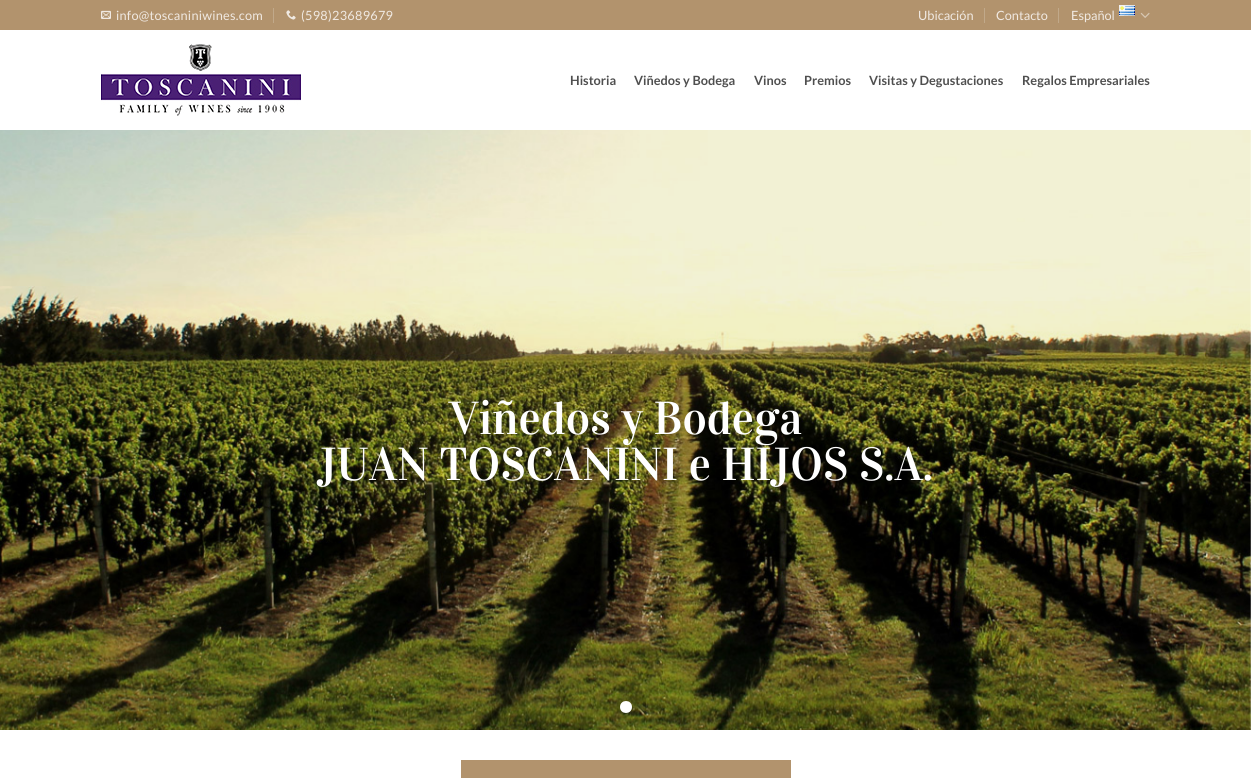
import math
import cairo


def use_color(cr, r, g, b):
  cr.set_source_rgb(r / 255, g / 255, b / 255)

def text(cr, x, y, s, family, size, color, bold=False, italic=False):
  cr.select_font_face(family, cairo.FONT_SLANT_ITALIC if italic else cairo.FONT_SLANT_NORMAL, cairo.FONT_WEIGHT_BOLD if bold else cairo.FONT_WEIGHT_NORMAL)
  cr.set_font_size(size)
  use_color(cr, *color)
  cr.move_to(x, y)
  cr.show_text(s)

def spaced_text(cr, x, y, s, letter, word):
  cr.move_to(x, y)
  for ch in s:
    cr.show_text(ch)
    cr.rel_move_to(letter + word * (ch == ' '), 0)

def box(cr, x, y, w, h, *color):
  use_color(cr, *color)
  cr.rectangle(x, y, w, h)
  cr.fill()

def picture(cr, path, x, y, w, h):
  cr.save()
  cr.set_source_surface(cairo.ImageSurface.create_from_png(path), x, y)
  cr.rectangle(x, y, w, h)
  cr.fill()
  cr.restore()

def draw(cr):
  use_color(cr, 255, 255, 255)
  cr.paint()
  box(cr, 0, 0, 1251, 30, 178, 147, 109)
  picture(cr, "img_01.png", 101, 10, 10, 9)
  box(cr, 273, 8, 1, 15, 193, 169, 138)
  picture(cr, "img_02.png", 286, 10, 10, 10)
  box(cr, 984, 8, 1, 15, 193, 169, 138)
  box(cr, 1058, 8, 1, 15, 193, 169, 138)
  picture(cr, "img_03.png", 1119, 5, 16, 11)
  picture(cr, "img_04.png", 1140, 12, 10, 6)
  picture(cr, "img_05.png", 101, 44, 200, 72)
  picture(cr, "img_06.png", 0, 130, 1251, 600)
  use_color(cr, 255, 255, 255)
  cr.arc(626, 707, 4.5, 0, 2 * math.pi)
  cr.fill_preserve()
  cr.set_line_width(3)
  cr.stroke()
  box(cr, 461, 760, 330, 18, 178, 147, 109)
  cr.select_font_face("Lato")
  cr.set_font_size(12.75)
  use_color(cr, 240, 233, 226)
  spaced_text(cr, 116, 20, "info@toscaniniwines.com", 0.25, 0)
  spaced_text(cr, 301, 20, "(598)23689679", 0.25, 0)
  text(cr, 918, 20, "Ubicación", "Lato", 12.75, (240, 233, 226))
  text(cr, 996, 20, "Contacto", "Lato", 12.75, (240, 233, 226))
  text(cr, 1071, 20, "Español", "Lato", 12.75, (240, 233, 226))
  text(cr, 570, 85, "Historia", "Lato", 12.75, (79, 79, 79), bold=True)
  text(cr, 634, 85, "Viñedos y Bodega", "Lato", 12.75, (79, 79, 79), bold=True)
  text(cr, 754, 85, "Vinos", "Lato", 12.75, (79, 79, 79), bold=True)
  text(cr, 804, 85, "Premios", "Lato", 12.75, (79, 79, 79), bold=True)
  text(cr, 869, 85, "Visitas y Degustaciones", "Lato", 12.75, (79, 79, 79), bold=True)
  text(cr, 1022, 85, "Regalos Empresariales", "Lato", 12.75, (79, 79, 79), bold=True)
  text(cr, 449, 434, "Viñedos y Bodega", "Vidaloka", 46.4, (255, 255, 255))
  text(cr, 318, 480, "JUAN TOSCANINI e HIJOS S.A.", "Vidaloka", 46.4, (255, 255, 255))


surface = cairo.ImageSurface(cairo.FORMAT_RGB24, 1251, 778)
cr = cairo.Context(surface)
options = cairo.FontOptions()
options.set_hint_metrics(cairo.HINT_METRICS_OFF)
options.set_hint_style(cairo.HINT_STYLE_NONE)
cr.set_font_options(options)
cr.set_miter_limit(4)
draw(cr)
surface.write_to_png("out.png")
